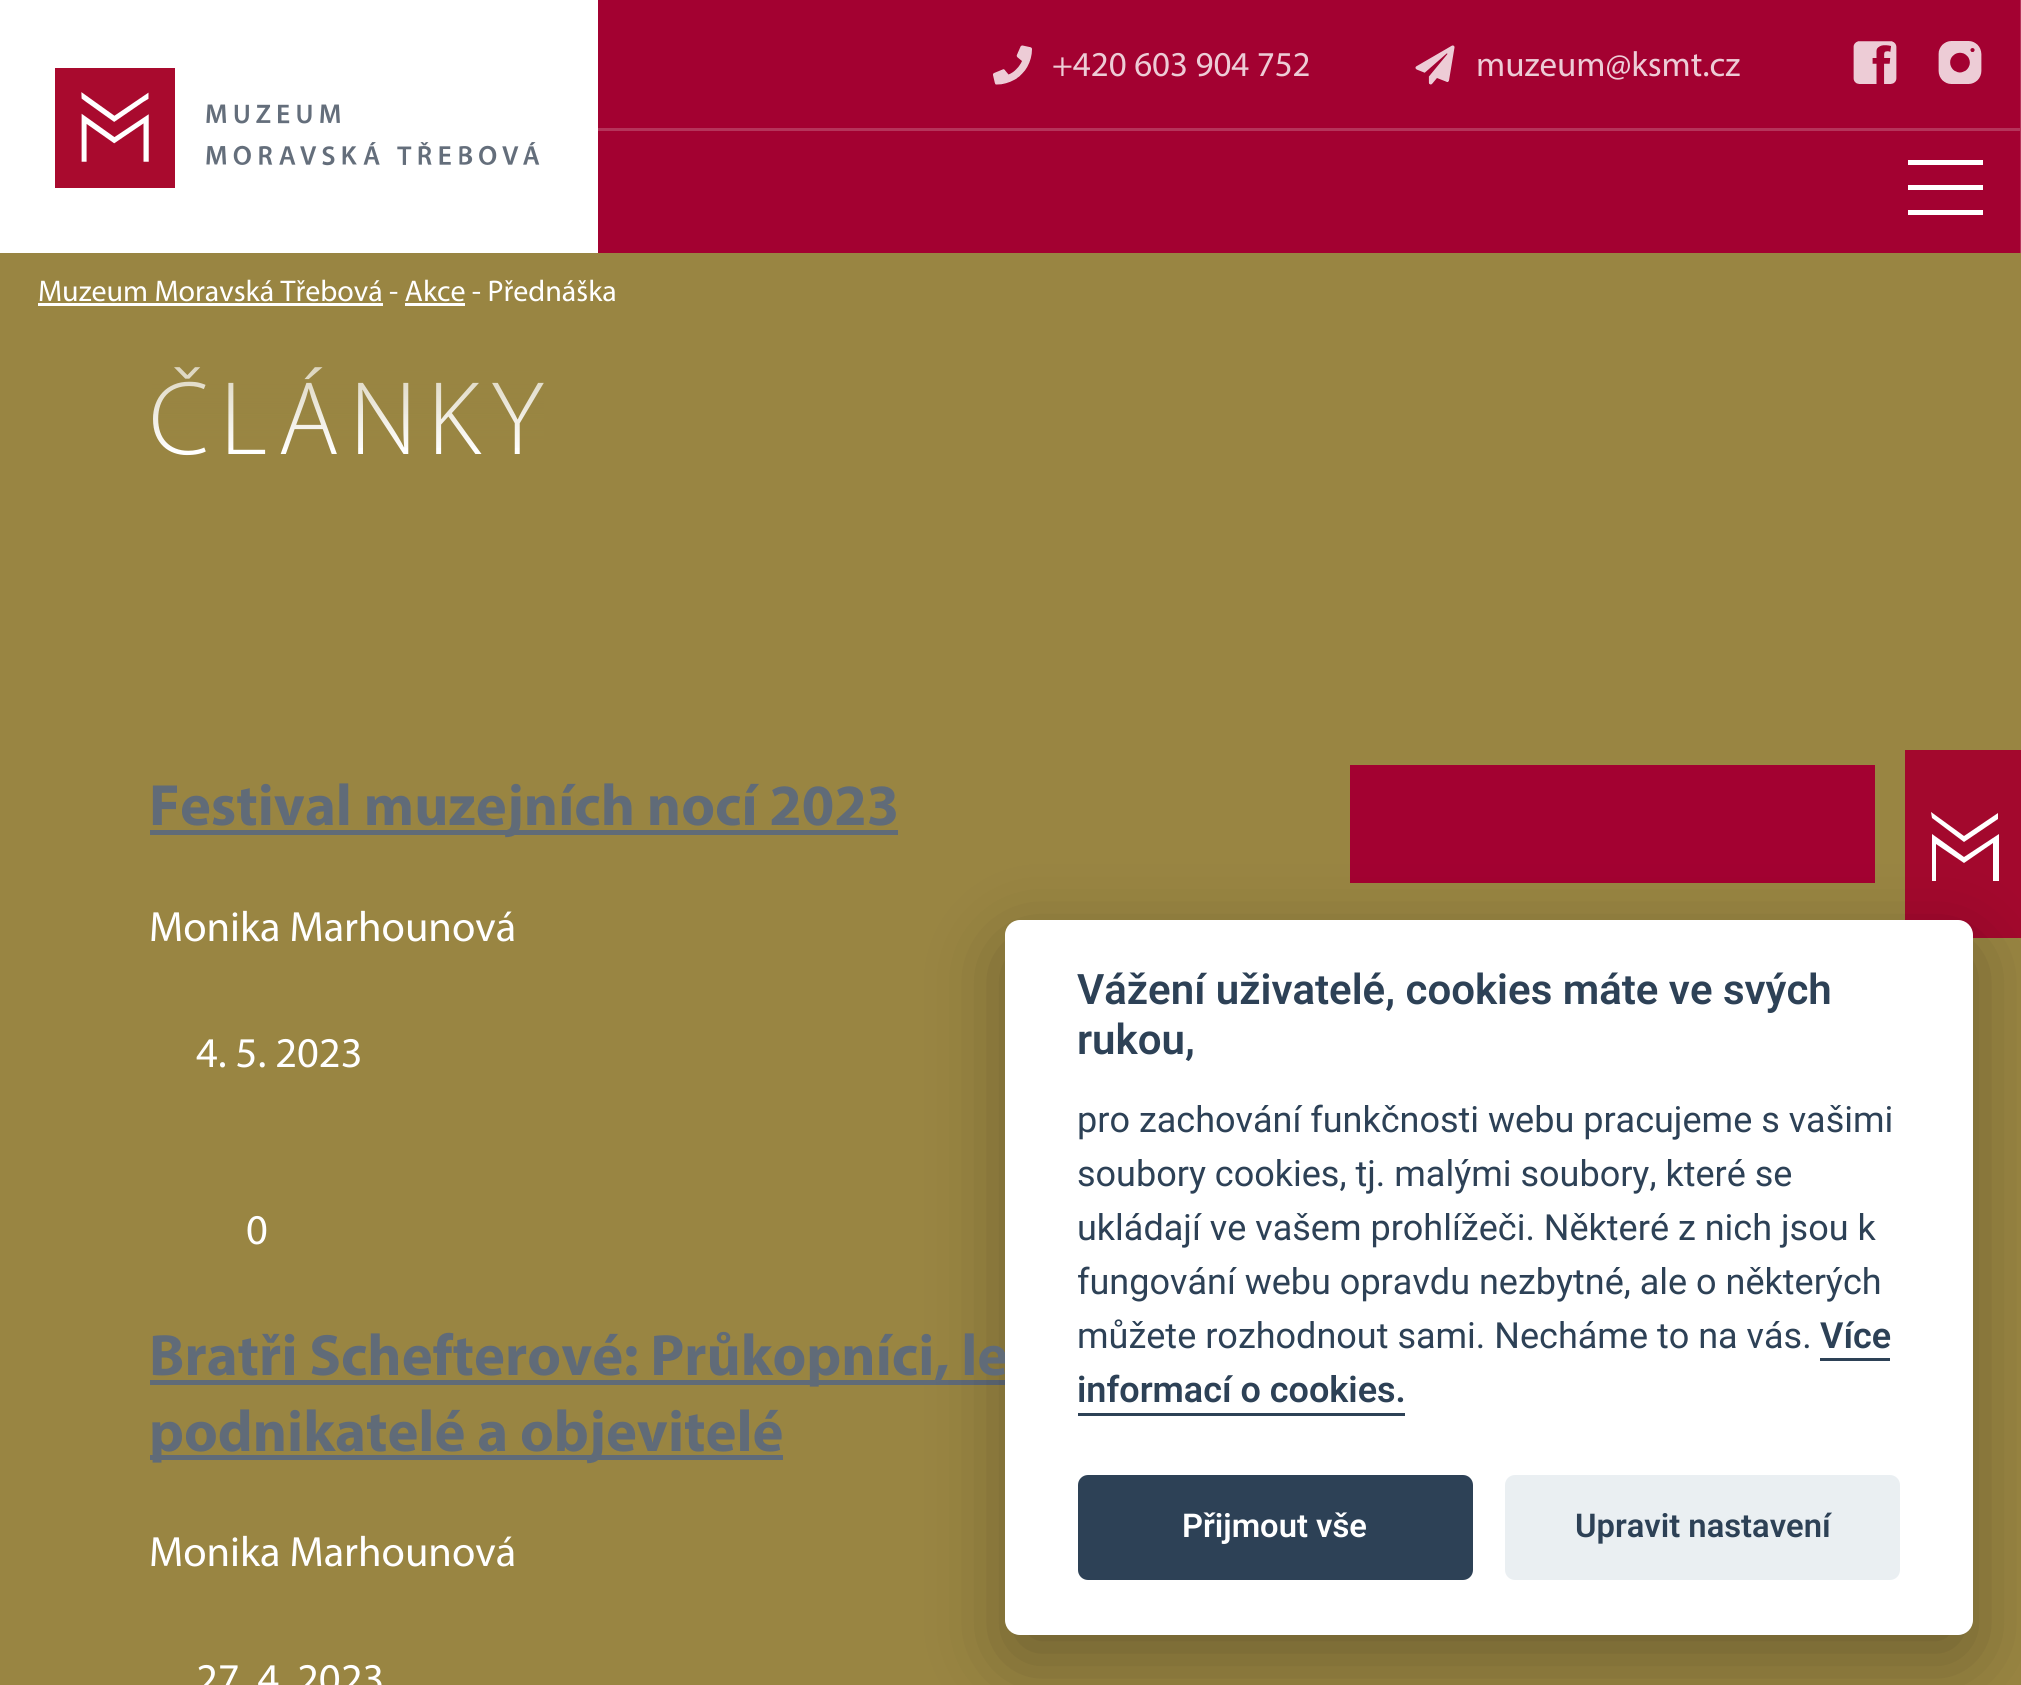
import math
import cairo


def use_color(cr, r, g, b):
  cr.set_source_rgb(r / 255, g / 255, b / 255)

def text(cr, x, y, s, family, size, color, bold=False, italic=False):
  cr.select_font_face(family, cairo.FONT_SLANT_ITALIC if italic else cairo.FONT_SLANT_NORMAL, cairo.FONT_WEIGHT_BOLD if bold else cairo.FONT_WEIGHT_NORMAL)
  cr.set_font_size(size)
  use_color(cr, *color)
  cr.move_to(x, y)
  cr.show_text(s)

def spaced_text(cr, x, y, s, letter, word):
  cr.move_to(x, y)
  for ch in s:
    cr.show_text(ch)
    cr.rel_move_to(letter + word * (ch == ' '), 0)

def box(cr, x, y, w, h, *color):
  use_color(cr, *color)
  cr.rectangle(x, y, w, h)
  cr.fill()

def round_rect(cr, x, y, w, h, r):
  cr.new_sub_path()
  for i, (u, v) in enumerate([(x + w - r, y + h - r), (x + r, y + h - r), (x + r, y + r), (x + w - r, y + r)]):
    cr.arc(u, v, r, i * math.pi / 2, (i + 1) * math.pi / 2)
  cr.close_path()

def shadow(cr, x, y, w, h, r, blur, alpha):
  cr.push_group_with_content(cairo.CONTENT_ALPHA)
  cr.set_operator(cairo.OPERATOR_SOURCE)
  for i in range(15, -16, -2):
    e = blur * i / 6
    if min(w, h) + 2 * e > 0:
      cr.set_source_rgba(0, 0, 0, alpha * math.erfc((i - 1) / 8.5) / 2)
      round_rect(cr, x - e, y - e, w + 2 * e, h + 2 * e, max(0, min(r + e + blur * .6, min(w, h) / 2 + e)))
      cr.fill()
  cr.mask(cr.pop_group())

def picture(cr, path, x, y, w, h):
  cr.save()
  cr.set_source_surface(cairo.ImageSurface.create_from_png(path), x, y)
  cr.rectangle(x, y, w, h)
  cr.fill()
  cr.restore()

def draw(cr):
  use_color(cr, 153, 133, 66)
  cr.paint()
  box(cr, 598, 0, 1422, 253, 163, 1, 49)
  box(cr, 2020, 0, 1, 253, 181, 52, 90)
  box(cr, 0, 0, 598, 253, 255, 255, 255)
  picture(cr, "img_01.png", 55, 68, 485, 120)
  picture(cr, "img_02.png", 993, 45, 39, 40)
  picture(cr, "img_03.png", 1415, 45, 40, 40)
  picture(cr, "img_04.png", 1853, 41, 44, 43)
  picture(cr, "img_05.png", 1938, 41, 44, 43)
  box(cr, 598, 128, 1422, 3, 181, 52, 90)
  box(cr, 1908, 160, 75, 5, 255, 255, 255)
  box(cr, 1908, 185, 75, 5, 255, 255, 255)
  box(cr, 1908, 210, 75, 5, 255, 255, 255)
  box(cr, 38, 303, 345, 3, 255, 255, 255)
  box(cr, 405, 303, 60, 3, 255, 255, 255)
  box(cr, 150, 830, 748, 5, 96, 107, 120)
  box(cr, 150, 1380, 855, 5, 96, 107, 120)
  box(cr, 150, 1455, 633, 5, 96, 107, 120)
  box(cr, 1350, 765, 525, 118, 163, 1, 49)
  box(cr, 1905, 750, 116, 188, 163, 8, 45)
  use_color(cr, 255, 255, 255)
  cr.new_path()
  cr.move_to(1999, 881)
  cr.line_to(1993, 881)
  cr.line_to(1993, 843)
  cr.line_to(1964, 863)
  cr.line_to(1936, 844)
  cr.line_to(1936, 881)
  cr.line_to(1932, 881)
  cr.line_to(1932, 834)
  cr.line_to(1964, 857)
  cr.line_to(1999, 834)
  cr.close_path()
  cr.fill()
  cr.new_path()
  cr.move_to(1998, 819)
  cr.line_to(1964, 842)
  cr.line_to(1932, 818)
  cr.line_to(1931, 812)
  cr.line_to(1964, 836)
  cr.line_to(1998, 813)
  cr.close_path()
  cr.fill()
  use_color(cr, 2, 2, 3)
  shadow(cr, 1005, 945, 968, 715, 15, 37.5, 0.28)
  text(cr, 1052, 76, "+420 603 904 752", "Myriad", 35, (237, 204, 214))
  text(cr, 1476, 76, "muzeum@ksmt.cz", "Myriad", 35, (237, 204, 214))
  text(cr, 38, 301, "Muzeum Moravská Třebová - Akce - Přednáška", "Myriad", 30, (255, 255, 255))
  cr.select_font_face("Myriad Light")
  cr.set_font_size(105.5)
  spaced_text(cr, 149, 454, "ČLÁNKY", 10.5, 0)
  gradient = cairo.LinearGradient(1011, 252, 1011, 453)
  gradient.add_color_stop_rgba(0, 0.6, 0.522, 0.259, 0.8)
  gradient.add_color_stop_rgba(0.99, 0.6, 0.522, 0.259, 0.01)
  gradient.add_color_stop_rgba(1, 0.6, 0.522, 0.259, 0)
  cr.set_source(gradient)
  cr.rectangle(152, 367, 392, 81)
  cr.fill()
  text(cr, 149, 825, "Festival muzejních nocí 2023", "Myriad", 58.6, (96, 107, 120), bold=True)
  text(cr, 149, 941, "Monika Marhounová", "Myriad", 42.5, (255, 255, 255))
  text(cr, 196, 1067, "4. 5. 2023", "Myriad", 42.5, (255, 255, 255))
  text(cr, 246, 1244, "0", "Myriad", 42.5, (255, 255, 255))
  text(cr, 149, 1375, "Bratři Schefterové: Průkopníci, le", "Myriad", 58.6, (96, 107, 120), bold=True)
  text(cr, 149, 1451, "podnikatelé a objevitelé", "Myriad", 58.6, (96, 107, 120), bold=True)
  text(cr, 149, 1566, "Monika Marhounová", "Myriad", 42.5, (255, 255, 255))
  text(cr, 196, 1693, "27. 4. 2023", "Myriad", 42.5, (255, 255, 255))
  round_rect(cr, 1005, 920, 968, 715, 15)
  cr.fill()
  text(cr, 1077, 1004, "Vážení uživatelé, cookies máte ve svých", "Roboto SemiBold", 42, (45, 65, 86))
  text(cr, 1077, 1054, "rukou,", "Roboto SemiBold", 42, (45, 65, 86))
  text(cr, 1077, 1132, "pro zachování funkčnosti webu pracujeme s vašimi", "Roboto", 36, (45, 65, 86))
  text(cr, 1077, 1186, "soubory cookies, tj. malými soubory, které se", "Roboto", 36, (45, 65, 86))
  text(cr, 1077, 1240, "ukládají ve vašem prohlížeči. Některé z nich jsou k", "Roboto", 36, (45, 65, 86))
  text(cr, 1077, 1294, "fungování webu opravdu nezbytné, ale o některých", "Roboto", 36, (45, 65, 86))
  text(cr, 1077, 1348, "můžete rozhodnout sami. Necháme to na vás.", "Roboto", 36, (45, 65, 86))
  text(cr, 1820, 1348, "Více", "Roboto SemiBold", 36, (45, 65, 86))
  box(cr, 1820, 1358, 70, 3, 45, 65, 86)
  text(cr, 1077, 1402, "informací o cookies.", "Roboto SemiBold", 36, (45, 65, 86))
  box(cr, 1078, 1413, 327, 3, 45, 65, 86)
  round_rect(cr, 1078, 1475, 395, 105, 10)
  cr.fill()
  text(cr, 1182, 1537, "Přijmout vše", "Roboto SemiBold", 32.75, (255, 255, 255))
  use_color(cr, 234, 239, 242)
  round_rect(cr, 1505, 1475, 395, 105, 10)
  cr.fill()
  text(cr, 1575, 1537, "Upravit nastavení", "Roboto SemiBold", 32.75, (45, 65, 86))


surface = cairo.ImageSurface(cairo.FORMAT_RGB24, 2021, 1685)
cr = cairo.Context(surface)
options = cairo.FontOptions()
options.set_hint_metrics(cairo.HINT_METRICS_OFF)
options.set_hint_style(cairo.HINT_STYLE_NONE)
cr.set_font_options(options)
cr.set_miter_limit(4)
draw(cr)
surface.write_to_png("out.png")
